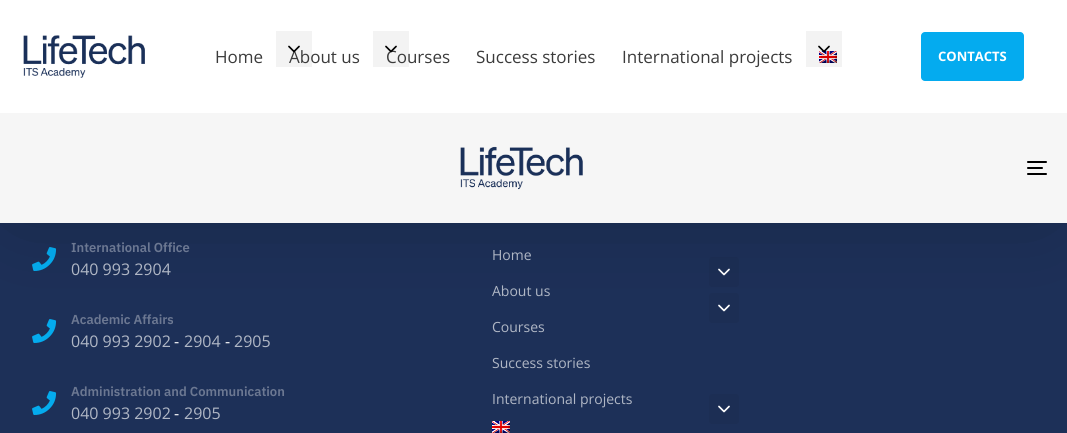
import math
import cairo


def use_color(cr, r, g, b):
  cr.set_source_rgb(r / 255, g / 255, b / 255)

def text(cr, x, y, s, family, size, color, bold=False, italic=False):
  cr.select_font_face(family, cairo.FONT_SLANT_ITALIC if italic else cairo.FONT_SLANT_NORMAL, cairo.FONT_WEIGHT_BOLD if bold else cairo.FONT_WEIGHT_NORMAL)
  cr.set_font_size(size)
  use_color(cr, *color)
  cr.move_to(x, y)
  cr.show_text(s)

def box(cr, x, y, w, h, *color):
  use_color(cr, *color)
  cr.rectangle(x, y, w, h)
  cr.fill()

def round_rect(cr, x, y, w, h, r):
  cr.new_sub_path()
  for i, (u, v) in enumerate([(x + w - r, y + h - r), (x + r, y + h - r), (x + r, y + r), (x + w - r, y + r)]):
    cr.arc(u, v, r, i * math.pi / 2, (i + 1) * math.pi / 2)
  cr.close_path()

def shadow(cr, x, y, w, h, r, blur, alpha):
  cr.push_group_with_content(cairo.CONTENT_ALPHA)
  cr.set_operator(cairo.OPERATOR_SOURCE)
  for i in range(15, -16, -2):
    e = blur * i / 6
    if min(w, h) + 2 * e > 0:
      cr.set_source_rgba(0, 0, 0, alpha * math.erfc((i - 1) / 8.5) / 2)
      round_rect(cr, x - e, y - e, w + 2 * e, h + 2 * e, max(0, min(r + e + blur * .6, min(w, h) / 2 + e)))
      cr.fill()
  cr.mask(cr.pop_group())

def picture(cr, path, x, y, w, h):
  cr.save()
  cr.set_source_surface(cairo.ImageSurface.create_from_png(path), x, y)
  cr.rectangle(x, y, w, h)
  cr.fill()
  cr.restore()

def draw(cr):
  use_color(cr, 29, 48, 88)
  cr.paint()
  picture(cr, "img_07.png", 32, 247, 25, 24)
  picture(cr, "img_07.png", 32, 319, 25, 24)
  use_color(cr, 28, 46, 84)
  round_rect(cr, 709, 257, 30, 30, 3)
  cr.fill()
  picture(cr, "img_08.png", 718, 268, 12, 8)
  round_rect(cr, 709, 293, 30, 30, 3)
  cr.fill()
  picture(cr, "img_08.png", 718, 304, 12, 8)
  use_color(cr, 0, 0, 0)
  shadow(cr, 18, 23, 1027, 183, 0, 45, 0.25)
  box(cr, 0, 0, 1067, 113, 255, 255, 255)
  picture(cr, "img_01.png", 23, 35, 122, 43)
  cr.set_source_rgba(0, 0, 0, 0.05)
  cr.rectangle(276, 31, 36, 36)
  cr.fill()
  cr.rectangle(373, 31, 36, 36)
  cr.fill()
  picture(cr, "img_05.png", 819, 51, 18, 12)
  cr.rectangle(806, 31, 36, 36)
  cr.fill()
  picture(cr, "img_04.png", 818, 45, 12, 8)
  use_color(cr, 4, 171, 239)
  round_rect(cr, 921, 32, 103, 49, 4)
  cr.fill()
  box(cr, 0, 113, 1067, 110, 246, 246, 246)
  picture(cr, "img_06.png", 460, 146, 123, 44)
  use_color(cr, 0, 0, 0)
  round_rect(cr, 1027, 161, 20, 2, 1)
  cr.fill()
  round_rect(cr, 1027, 167, 16, 2, 1)
  cr.fill()
  round_rect(cr, 1027, 173, 20, 2, 1)
  cr.fill()
  picture(cr, "img_07.png", 32, 391, 25, 24)
  use_color(cr, 28, 46, 84)
  round_rect(cr, 709, 394, 30, 30, 3)
  cr.fill()
  picture(cr, "img_08.png", 718, 405, 12, 8)
  picture(cr, "img_05.png", 492, 421, 18, 12)
  text(cr, 215, 63, "Home", "Open Sans", 17, (59, 59, 59))
  text(cr, 289, 63, "About us", "Open Sans", 17, (59, 59, 59))
  picture(cr, "img_02.png", 288, 45, 12, 8)
  text(cr, 386, 63, "Courses", "Open Sans", 17, (59, 59, 59))
  picture(cr, "img_03.png", 385, 45, 12, 8)
  text(cr, 476, 63, "Success stories", "Open Sans", 17, (59, 59, 59))
  text(cr, 622, 63, "International projects", "Open Sans", 17, (59, 59, 59))
  text(cr, 938, 61, "CONTACTS", "Open Sans", 13, (255, 255, 255), bold=True)
  text(cr, 71, 252, "International Office", "IBM Plex Sans SemiBold", 13, (108, 120, 146))
  text(cr, 71, 275, "040 993 2904", "Open Sans", 16, (176, 183, 197))
  text(cr, 71, 324, "Academic Affairs", "IBM Plex Sans SemiBold", 13, (108, 120, 146))
  text(cr, 71, 347, "040 993 2902", "Open Sans", 16, (176, 183, 197))
  text(cr, 174, 347, "-", "Open Sans", 16, (255, 255, 255))
  text(cr, 184, 347, "2904", "Open Sans", 16, (176, 183, 197))
  text(cr, 225, 347, "-", "Open Sans", 16, (255, 255, 255))
  text(cr, 234, 347, "2905", "Open Sans", 16, (176, 183, 197))
  text(cr, 71, 396, "Administration and Communication", "IBM Plex Sans SemiBold", 13, (108, 120, 146))
  text(cr, 71, 419, "040 993 2902", "Open Sans", 16, (176, 183, 197))
  text(cr, 174, 419, "-", "Open Sans", 16, (255, 255, 255))
  text(cr, 184, 419, "2905", "Open Sans", 16, (176, 183, 197))
  text(cr, 492, 260, "Home", "Open Sans", 14, (176, 183, 197))
  text(cr, 492, 296, "About us", "Open Sans", 14, (176, 183, 197))
  text(cr, 492, 332, "Courses", "Open Sans", 14, (176, 183, 197))
  text(cr, 492, 368, "Success stories", "Open Sans", 14, (176, 183, 197))
  text(cr, 492, 404, "International projects", "Open Sans", 14, (176, 183, 197))


surface = cairo.ImageSurface(cairo.FORMAT_RGB24, 1067, 433)
cr = cairo.Context(surface)
options = cairo.FontOptions()
options.set_hint_metrics(cairo.HINT_METRICS_OFF)
options.set_hint_style(cairo.HINT_STYLE_NONE)
cr.set_font_options(options)
cr.set_miter_limit(4)
draw(cr)
surface.write_to_png("out.png")
